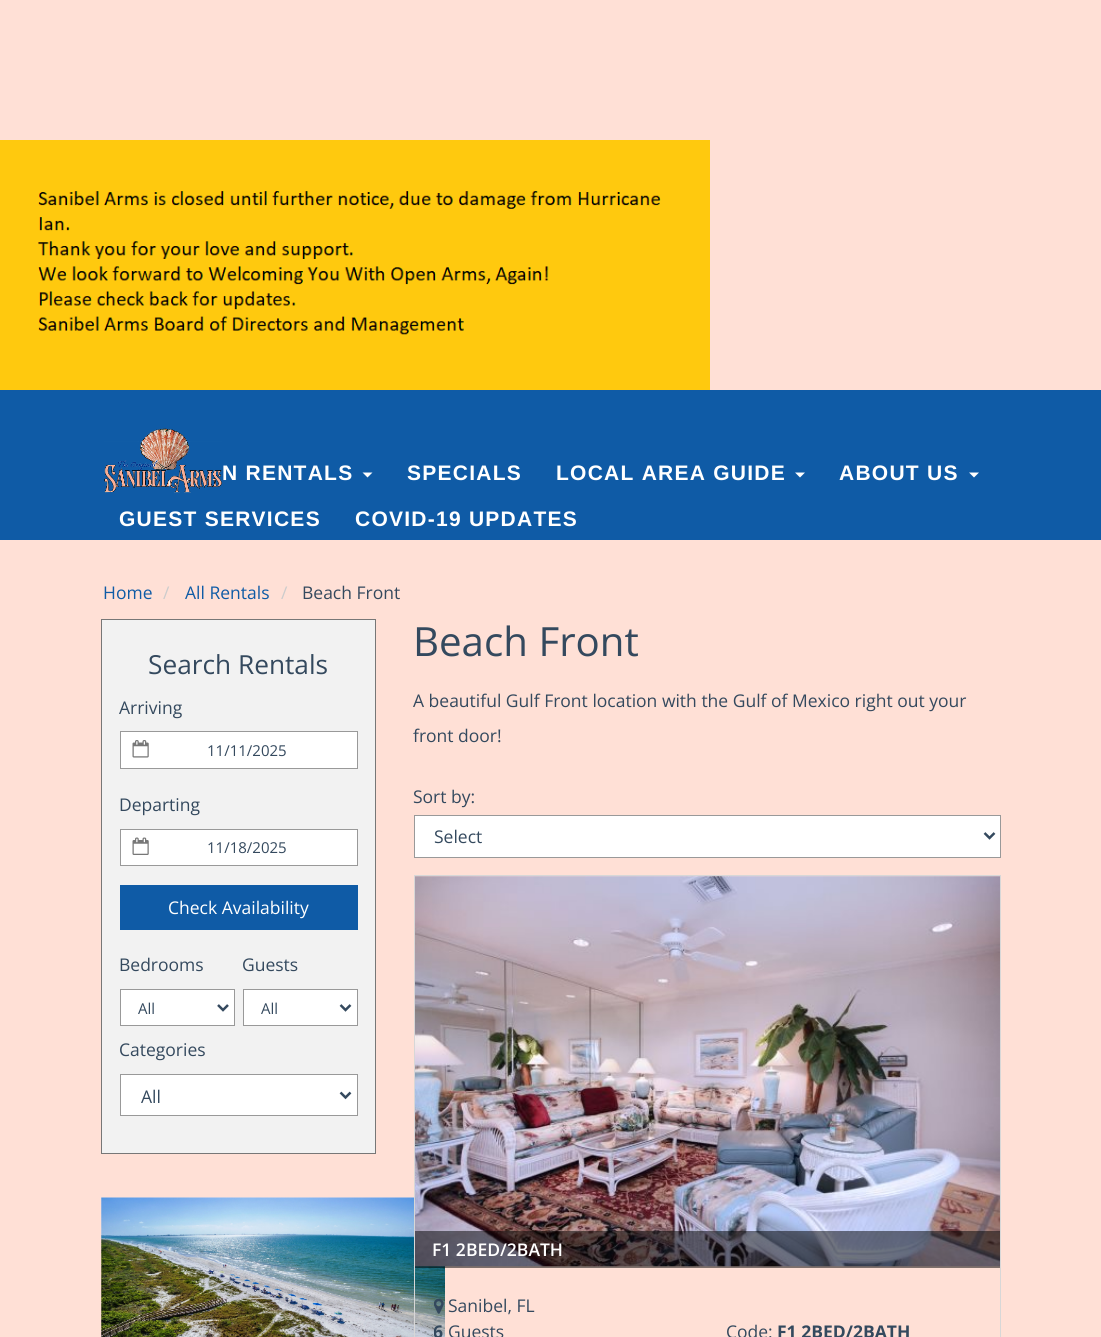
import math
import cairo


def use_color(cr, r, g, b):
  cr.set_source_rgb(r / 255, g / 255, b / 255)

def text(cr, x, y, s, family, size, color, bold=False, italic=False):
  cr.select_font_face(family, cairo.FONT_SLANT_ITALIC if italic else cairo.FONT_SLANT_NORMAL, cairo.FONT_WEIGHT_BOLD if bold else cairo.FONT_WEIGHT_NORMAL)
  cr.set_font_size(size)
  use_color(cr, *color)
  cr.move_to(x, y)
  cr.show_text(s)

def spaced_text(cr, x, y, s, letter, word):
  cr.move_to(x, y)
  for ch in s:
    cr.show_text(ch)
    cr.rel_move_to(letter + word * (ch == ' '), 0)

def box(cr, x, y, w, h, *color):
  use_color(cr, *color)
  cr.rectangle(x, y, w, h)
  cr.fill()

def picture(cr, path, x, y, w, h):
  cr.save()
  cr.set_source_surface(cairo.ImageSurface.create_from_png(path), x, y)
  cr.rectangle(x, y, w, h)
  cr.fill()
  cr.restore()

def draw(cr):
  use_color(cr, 255, 224, 214)
  cr.paint()
  picture(cr, "img_01.png", 0, 140, 710, 250)
  box(cr, 0, 390, 1101, 150, 15, 91, 166)
  picture(cr, "img_02.png", 104, 428, 118, 65)
  use_color(cr, 255, 255, 255)
  cr.new_path()
  cr.move_to(362.5, 472.5)
  cr.line_to(372.5, 472.5)
  cr.line_to(367.5, 477.5)
  cr.close_path()
  cr.fill()
  cr.new_path()
  cr.move_to(795, 472.5)
  cr.line_to(805, 472.5)
  cr.line_to(800, 477.5)
  cr.close_path()
  cr.fill()
  cr.new_path()
  cr.move_to(969, 472.5)
  cr.line_to(979, 472.5)
  cr.line_to(974, 477.5)
  cr.close_path()
  cr.fill()
  use_color(cr, 242, 242, 242)
  cr.rectangle(101.5, 619.5, 274, 534)
  cr.fill_preserve()
  use_color(cr, 119, 119, 119)
  cr.set_line_width(1)
  cr.stroke()
  use_color(cr, 255, 255, 255)
  cr.rectangle(120.5, 731.5, 237, 37)
  cr.fill_preserve()
  use_color(cr, 153, 153, 153)
  cr.stroke()
  picture(cr, "img_03.png", 132, 740, 17, 18)
  use_color(cr, 255, 255, 255)
  cr.rectangle(120.5, 829.5, 237, 36)
  cr.fill_preserve()
  use_color(cr, 153, 153, 153)
  cr.stroke()
  picture(cr, "img_04.png", 132, 837, 17, 18)
  box(cr, 120, 885, 238, 45, 15, 91, 166)
  use_color(cr, 255, 255, 255)
  cr.rectangle(120.5, 989.5, 114, 36)
  cr.fill_preserve()
  use_color(cr, 153, 153, 153)
  cr.stroke()
  cr.new_path()
  cr.move_to(218, 1005)
  cr.line_to(223, 1010)
  cr.line_to(228, 1005)
  use_color(cr, 52, 73, 94)
  cr.set_line_width(2.5)
  cr.stroke()
  use_color(cr, 255, 255, 255)
  cr.rectangle(243.5, 989.5, 114, 36)
  cr.fill_preserve()
  use_color(cr, 153, 153, 153)
  cr.set_line_width(1)
  cr.stroke()
  cr.new_path()
  cr.move_to(340.5, 1005)
  cr.line_to(345.5, 1010)
  cr.line_to(350.5, 1005)
  use_color(cr, 52, 73, 94)
  cr.set_line_width(2.5)
  cr.stroke()
  use_color(cr, 255, 255, 255)
  cr.rectangle(120.5, 1074.5, 237, 41)
  cr.fill_preserve()
  use_color(cr, 153, 153, 153)
  cr.set_line_width(1)
  cr.stroke()
  cr.new_path()
  cr.move_to(340.5, 1092.5)
  cr.line_to(345.5, 1097.5)
  cr.line_to(350.5, 1092.5)
  use_color(cr, 52, 73, 94)
  cr.set_line_width(2.5)
  cr.stroke()
  picture(cr, "img_05.png", 101, 1197, 344, 140)
  use_color(cr, 255, 255, 255)
  cr.rectangle(414.5, 815.5, 586, 42)
  cr.fill_preserve()
  use_color(cr, 153, 153, 153)
  cr.set_line_width(1)
  cr.stroke()
  cr.new_path()
  cr.move_to(984.5, 833)
  cr.line_to(989.5, 838)
  cr.line_to(994.5, 833)
  use_color(cr, 52, 73, 94)
  cr.set_line_width(2.5)
  cr.stroke()
  cr.rectangle(414.5, 875.5, 586, 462)
  use_color(cr, 215, 215, 215)
  cr.set_line_width(1)
  cr.stroke()
  picture(cr, "img_06.png", 415, 876, 585, 391)
  cr.set_source_rgba(0, 0, 0, 0.5)
  cr.rectangle(415, 1231, 585, 37)
  cr.fill()
  picture(cr, "img_07.png", 434, 1298, 10, 16)
  cr.select_font_face("Liberation Sans", cairo.FONT_SLANT_NORMAL, cairo.FONT_WEIGHT_BOLD)
  cr.set_font_size(21)
  use_color(cr, 255, 255, 255)
  spaced_text(cr, 222, 480, "N RENTALS", 1.25, 0)
  spaced_text(cr, 407, 480, "SPECIALS", 1.25, 0)
  spaced_text(cr, 556, 480, "LOCAL AREA GUIDE", 1.25, 0)
  spaced_text(cr, 839, 480, "ABOUT US", 1.25, 0)
  spaced_text(cr, 119, 526, "GUEST SERVICES", 1.25, 0)
  spaced_text(cr, 355, 526, "COVID-19 UPDATES", 1.25, 0)
  text(cr, 103, 599, "Home", "Open Sans", 17.5, (15, 91, 166))
  text(cr, 163, 599, "/", "Open Sans", 17.5, (204, 204, 204))
  text(cr, 185, 599, "All Rentals", "Open Sans", 17.5, (15, 91, 166))
  text(cr, 281, 599, "/", "Open Sans", 17.5, (204, 204, 204))
  text(cr, 302, 599, "Beach Front", "Open Sans", 17.5, (52, 73, 94))
  text(cr, 148, 674, "Search Rentals", "Open Sans", 26.25, (52, 73, 94))
  text(cr, 119, 714, "Arriving", "Open Sans", 17.5, (52, 73, 94))
  text(cr, 207, 756, "11/11/2025", "Open Sans", 15, (52, 73, 94))
  text(cr, 119, 811, "Departing", "Open Sans", 17.5, (52, 73, 94))
  text(cr, 207, 853, "11/18/2025", "Open Sans", 15, (52, 73, 94))
  text(cr, 168, 914, "Check Availability", "Open Sans", 17.5, (255, 255, 255))
  text(cr, 119, 971, "Bedrooms", "Open Sans", 17.5, (52, 73, 94))
  text(cr, 138, 1014, "All", "Open Sans", 15, (52, 73, 94))
  text(cr, 242, 971, "Guests", "Open Sans", 17.5, (52, 73, 94))
  text(cr, 261, 1014, "All", "Open Sans", 15, (52, 73, 94))
  text(cr, 119, 1056, "Categories", "Open Sans", 17.5, (52, 73, 94))
  text(cr, 141, 1103, "All", "Open Sans", 17.5, (52, 73, 94))
  text(cr, 413, 656, "Beach Front", "Open Sans", 40.25, (52, 73, 94))
  text(cr, 413, 707, "A beautiful Gulf Front location with the Gulf of Mexico right out your", "Open Sans", 17.5, (52, 73, 94))
  text(cr, 413, 742, "front door!", "Open Sans", 17.5, (52, 73, 94))
  text(cr, 413, 803, "Sort by:", "Open Sans", 17.5, (52, 73, 94))
  text(cr, 434, 843, "Select", "Open Sans", 17.5, (52, 73, 94))
  text(cr, 432, 1256, "F1 2BED/2BATH", "Open Sans SemiBold", 17.5, (255, 255, 255))
  text(cr, 448, 1312, "Sanibel, FL", "Open Sans", 17.5, (52, 73, 94))
  cr.save()
  cr.rectangle(434, 1319, 255, 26)
  cr.clip()
  text(cr, 433, 1338, "6", "Open Sans", 17.5, (52, 73, 94), bold=True)
  cr.restore()
  text(cr, 448, 1338, "Guests", "Open Sans", 17.5, (52, 73, 94))
  text(cr, 726, 1338, "Code:", "Open Sans", 17.5, (52, 73, 94))
  text(cr, 777, 1338, "F1 2BED/2BATH", "Open Sans", 17.5, (52, 73, 94), bold=True)


surface = cairo.ImageSurface(cairo.FORMAT_RGB24, 1101, 1337)
cr = cairo.Context(surface)
options = cairo.FontOptions()
options.set_hint_metrics(cairo.HINT_METRICS_OFF)
options.set_hint_style(cairo.HINT_STYLE_NONE)
cr.set_font_options(options)
cr.set_miter_limit(4)
draw(cr)
surface.write_to_png("out.png")
